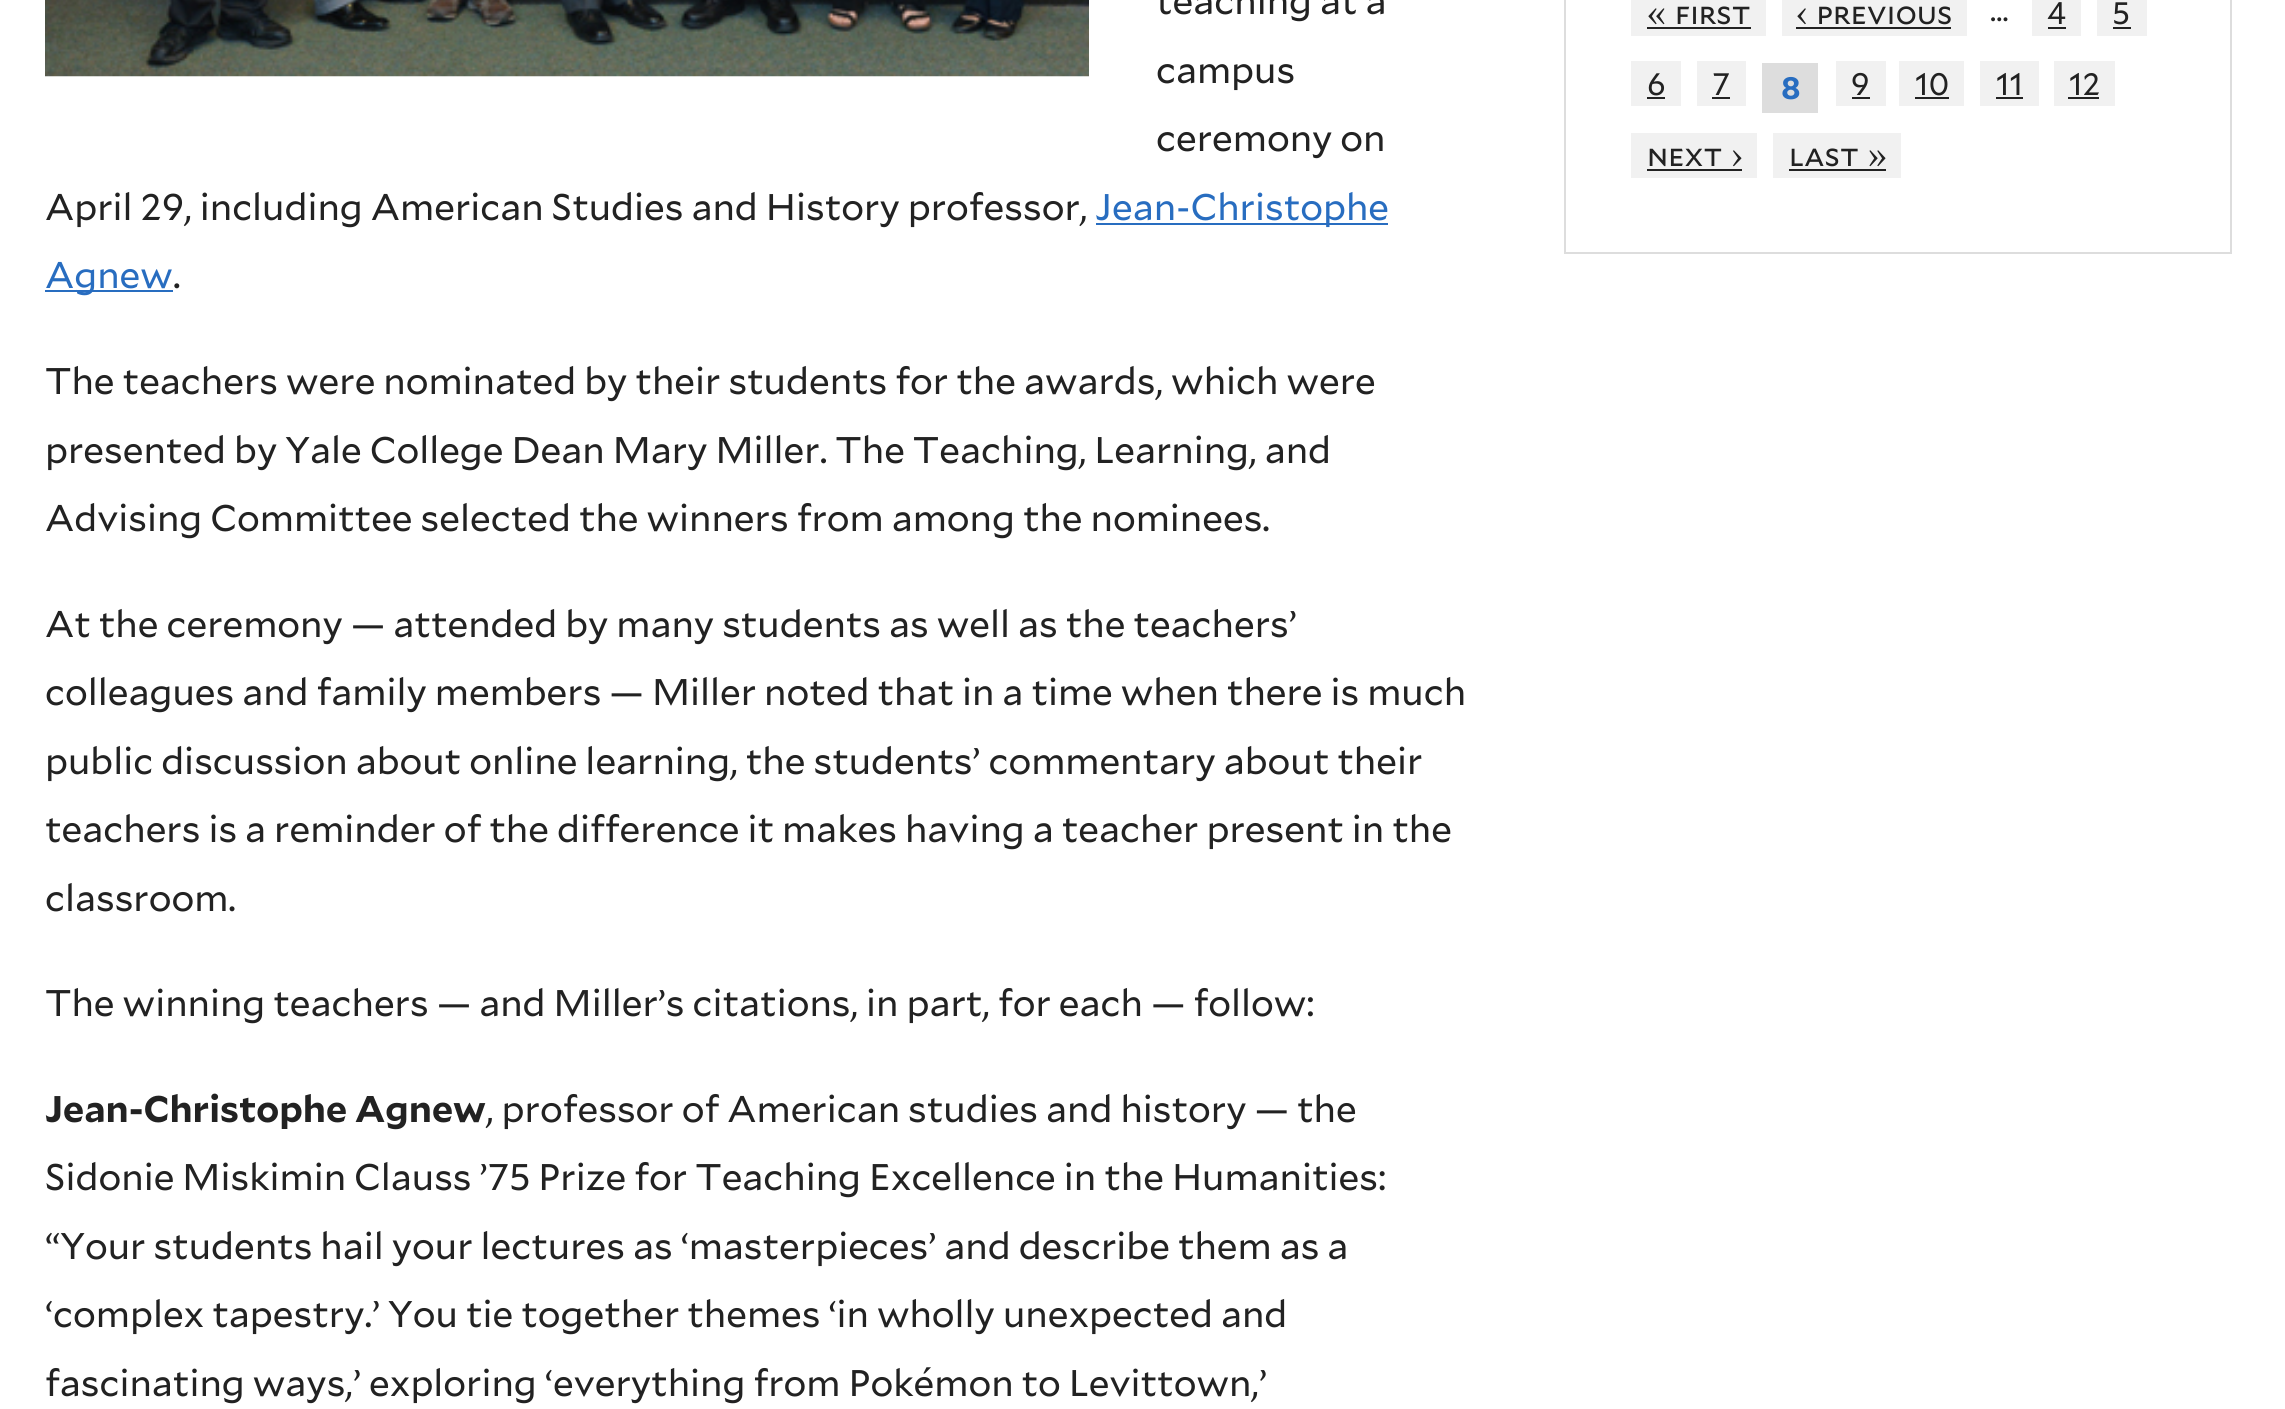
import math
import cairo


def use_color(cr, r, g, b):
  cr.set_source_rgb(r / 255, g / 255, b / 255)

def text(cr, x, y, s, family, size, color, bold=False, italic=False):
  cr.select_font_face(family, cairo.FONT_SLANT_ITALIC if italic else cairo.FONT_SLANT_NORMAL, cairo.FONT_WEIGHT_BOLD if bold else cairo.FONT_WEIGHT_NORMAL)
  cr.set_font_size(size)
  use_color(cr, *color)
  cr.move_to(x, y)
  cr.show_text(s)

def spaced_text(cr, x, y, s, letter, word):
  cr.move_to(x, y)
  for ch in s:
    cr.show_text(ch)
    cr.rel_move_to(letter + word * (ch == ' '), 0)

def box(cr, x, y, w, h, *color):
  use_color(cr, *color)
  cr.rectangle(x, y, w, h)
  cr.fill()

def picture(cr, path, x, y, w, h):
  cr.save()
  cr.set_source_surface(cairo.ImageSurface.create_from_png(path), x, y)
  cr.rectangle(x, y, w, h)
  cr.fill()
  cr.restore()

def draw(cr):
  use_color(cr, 255, 255, 255)
  cr.paint()
  picture(cr, "img_01.png", 45, 0, 1044, 77)
  box(cr, 1096, 223, 292, 2, 40, 109, 192)
  box(cr, 45, 290, 128, 2, 40, 109, 192)
  box(cr, 2230, 0, 2, 254, 221, 221, 221)
  box(cr, 1564, 252, 668, 2, 221, 221, 221)
  box(cr, 1564, 0, 2, 254, 221, 221, 221)
  box(cr, 1631, 0, 135, 36, 241, 241, 241)
  box(cr, 1647, 27, 104, 2, 34, 34, 34)
  box(cr, 1782, 0, 185, 36, 241, 241, 241)
  box(cr, 1796, 27, 155, 2, 34, 34, 34)
  box(cr, 2032, 0, 49, 36, 241, 241, 241)
  box(cr, 2048, 27, 18, 2, 34, 34, 34)
  box(cr, 2097, 0, 50, 36, 241, 241, 241)
  box(cr, 2113, 27, 18, 2, 34, 34, 34)
  box(cr, 1631, 61, 50, 45, 241, 241, 241)
  box(cr, 1647, 97, 18, 2, 34, 34, 34)
  box(cr, 1697, 61, 49, 45, 241, 241, 241)
  box(cr, 1712, 97, 18, 2, 34, 34, 34)
  box(cr, 1762, 63, 56, 50, 221, 221, 221)
  box(cr, 1836, 61, 50, 45, 241, 241, 241)
  box(cr, 1852, 97, 18, 2, 34, 34, 34)
  box(cr, 1899, 61, 65, 45, 241, 241, 241)
  box(cr, 1915, 97, 34, 2, 34, 34, 34)
  box(cr, 1980, 61, 59, 45, 241, 241, 241)
  box(cr, 1996, 97, 27, 2, 34, 34, 34)
  box(cr, 2054, 61, 61, 45, 241, 241, 241)
  box(cr, 2068, 97, 31, 2, 34, 34, 34)
  box(cr, 1631, 133, 126, 45, 241, 241, 241)
  box(cr, 1647, 169, 95, 2, 34, 34, 34)
  box(cr, 1773, 133, 128, 45, 241, 241, 241)
  box(cr, 1789, 169, 97, 2, 34, 34, 34)
  text(cr, 1156, 14, "teaching at a", "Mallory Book", 37.05, (34, 34, 34))
  text(cr, 1156, 83, "campus", "Mallory Book", 37.05, (34, 34, 34))
  text(cr, 1156, 151, "ceremony on", "Mallory Book", 37.05, (34, 34, 34))
  text(cr, 45, 220, "April 29, including American Studies and History professor,", "Mallory Book", 37.05, (34, 34, 34))
  text(cr, 1095, 220, "Jean-Christophe", "Mallory Book", 37.05, (40, 109, 192))
  text(cr, 45, 288, "Agnew", "Mallory Book", 37.05, (40, 109, 192))
  text(cr, 173, 288, ".", "Mallory Book", 37.05, (34, 34, 34))
  text(cr, 45, 394, "The teachers were nominated by their students for the awards, which were", "Mallory Book", 37.05, (34, 34, 34))
  text(cr, 45, 463, "presented by Yale College Dean Mary Miller. The Teaching, Learning, and", "Mallory Book", 37.05, (34, 34, 34))
  text(cr, 45, 531, "Advising Committee selected the winners from among the nominees.", "Mallory Book", 37.05, (34, 34, 34))
  text(cr, 45, 637, "At the ceremony — attended by many students as well as the teachers’", "Mallory Book", 37.05, (34, 34, 34))
  text(cr, 45, 705, "colleagues and family members — Miller noted that in a time when there is much", "Mallory Book", 37.05, (34, 34, 34))
  text(cr, 45, 774, "public discussion about online learning, the students’ commentary about their", "Mallory Book", 37.05, (34, 34, 34))
  text(cr, 45, 842, "teachers is a reminder of the difference it makes having a teacher present in the", "Mallory Book", 37.05, (34, 34, 34))
  text(cr, 45, 911, "classroom.", "Mallory Book", 37.05, (34, 34, 34))
  text(cr, 45, 1016, "The winning teachers — and Miller’s citations, in part, for each — follow:", "Mallory Book", 37.05, (34, 34, 34))
  text(cr, 45, 1122, "Jean-Christophe Agnew", "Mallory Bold", 37.05, (34, 34, 34), bold=True)
  text(cr, 486, 1122, ", professor of American studies and history — the", "Mallory Book", 37.05, (34, 34, 34))
  text(cr, 45, 1190, "Sidonie Miskimin Clauss ’75 Prize for Teaching Excellence in the Humanities:", "Mallory Book", 37.05, (34, 34, 34))
  text(cr, 45, 1259, "“Your students hail your lectures as ‘masterpieces’ and describe them as a", "Mallory Book", 37.05, (34, 34, 34))
  text(cr, 45, 1327, "‘complex tapestry.’ You tie together themes ‘in wholly unexpected and", "Mallory Book", 37.05, (34, 34, 34))
  text(cr, 45, 1396, "fascinating ways,’ exploring ‘everything from Pokémon to Levittown,’", "Mallory Book", 37.05, (34, 34, 34))
  cr.select_font_face("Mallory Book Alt")
  cr.set_font_size(31)
  spaced_text(cr, 1647, 24, "« first", 0, 2)
  spaced_text(cr, 1796, 24, "‹ previous", 0, 2)
  text(cr, 1990, 21, "…", "Mallory Book", 31, (34, 34, 34))
  text(cr, 2047, 24, "4", "Mallory Book", 31, (34, 34, 34))
  text(cr, 2112, 24, "5", "Mallory Book", 31, (34, 34, 34))
  text(cr, 1647, 95, "6", "Mallory Book", 31, (34, 34, 34))
  text(cr, 1712, 95, "7", "Mallory Book", 31, (34, 34, 34))
  text(cr, 1781, 99, "8", "Mallory Bold", 31, (40, 109, 192), bold=True)
  text(cr, 1851, 95, "9", "Mallory Book", 31, (34, 34, 34))
  text(cr, 1915, 95, "10", "Mallory Book", 31, (34, 34, 34))
  text(cr, 1996, 95, "11", "Mallory Book", 31, (34, 34, 34))
  text(cr, 2069, 95, "12", "Mallory Book", 31, (34, 34, 34))
  cr.select_font_face("Mallory Book Alt")
  spaced_text(cr, 1647, 166, "next ›", 0, 2)
  spaced_text(cr, 1789, 166, "last »", 0, 2)


surface = cairo.ImageSurface(cairo.FORMAT_RGB24, 2285, 1409)
cr = cairo.Context(surface)
options = cairo.FontOptions()
options.set_hint_metrics(cairo.HINT_METRICS_OFF)
options.set_hint_style(cairo.HINT_STYLE_NONE)
cr.set_font_options(options)
cr.set_miter_limit(4)
draw(cr)
surface.write_to_png("out.png")
